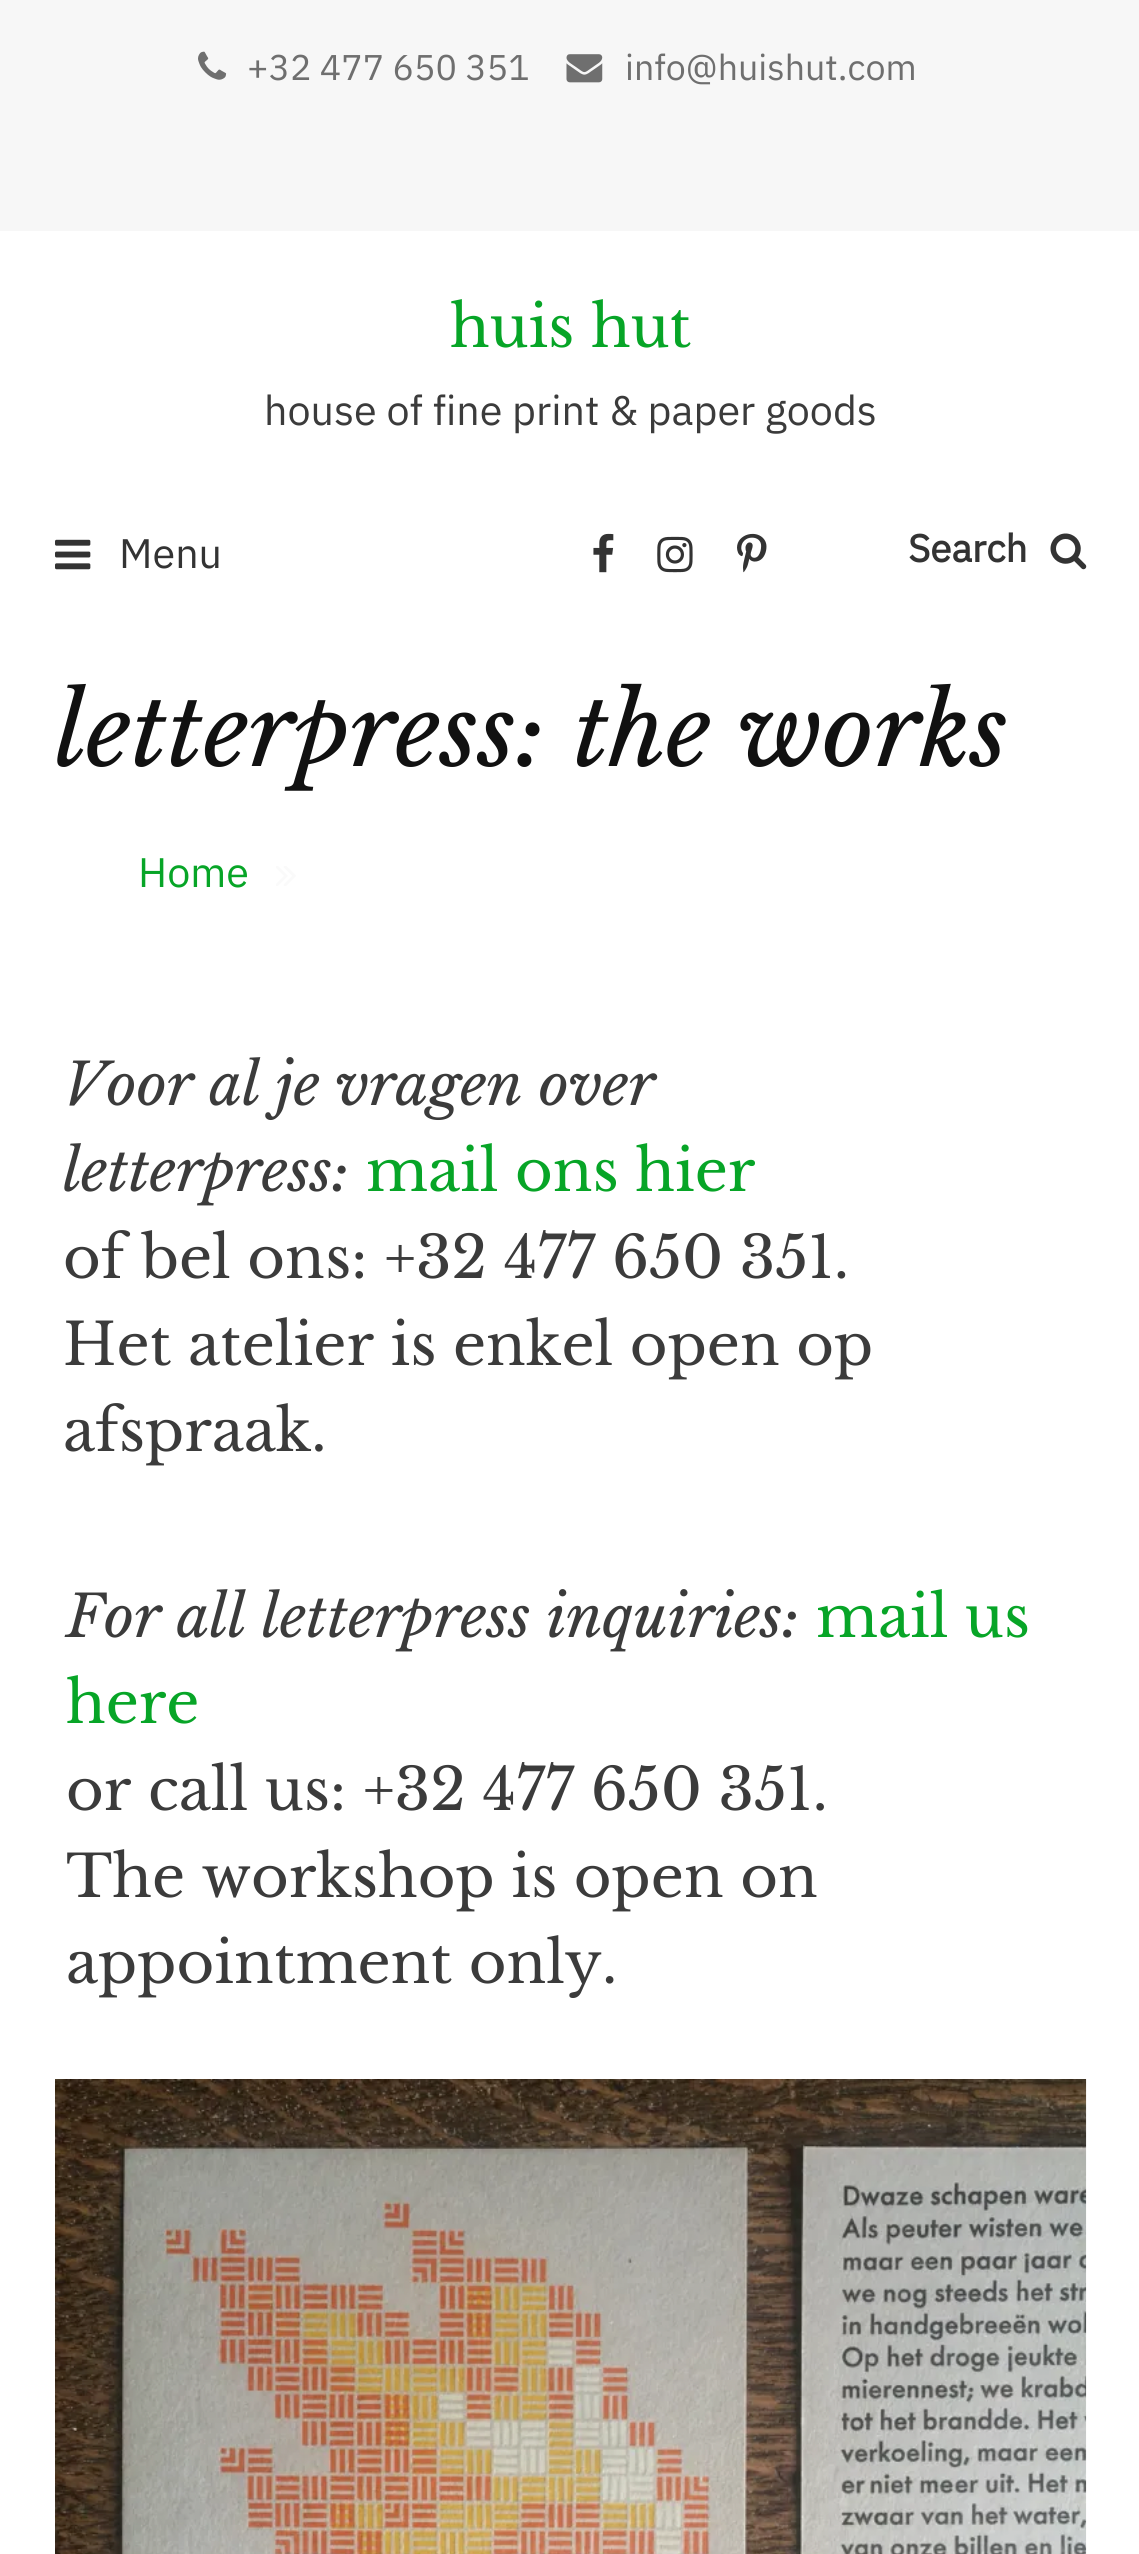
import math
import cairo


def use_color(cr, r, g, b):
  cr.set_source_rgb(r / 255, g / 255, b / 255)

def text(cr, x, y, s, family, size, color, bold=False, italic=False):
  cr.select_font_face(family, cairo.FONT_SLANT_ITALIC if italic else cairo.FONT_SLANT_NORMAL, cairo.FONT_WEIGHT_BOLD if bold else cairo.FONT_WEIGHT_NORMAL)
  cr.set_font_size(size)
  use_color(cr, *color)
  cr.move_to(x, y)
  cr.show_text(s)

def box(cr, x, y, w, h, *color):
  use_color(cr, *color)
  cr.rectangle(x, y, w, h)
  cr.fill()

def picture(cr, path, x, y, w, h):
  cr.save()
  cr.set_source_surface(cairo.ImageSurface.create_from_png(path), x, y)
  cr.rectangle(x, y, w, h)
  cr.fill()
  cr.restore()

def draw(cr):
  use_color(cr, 255, 255, 255)
  cr.paint()
  box(cr, 0, 0, 1139, 231, 247, 247, 247)
  picture(cr, "img_01.png", 198, 51, 29, 29)
  picture(cr, "img_02.png", 566, 54, 37, 29)
  picture(cr, "img_03.png", 55, 539, 36, 31)
  picture(cr, "img_04.png", 593, 533, 21, 40)
  picture(cr, "img_05.png", 657, 536, 36, 37)
  picture(cr, "img_06.png", 737, 533, 30, 40)
  picture(cr, "img_07.png", 1050, 533, 37, 37)
  picture(cr, "img_08.png", 276, 866, 20, 20)
  picture(cr, "img_09.png", 55, 2079, 1032, 475)
  text(cr, 247, 80, "+32 477 650 351", "IBM Plex Sans", 35.75, (111, 111, 111))
  text(cr, 625, 80, "info@huishut.com", "IBM Plex Sans", 35.75, (111, 111, 111))
  text(cr, 450, 347, "huis hut", "Libre Baskerville", 57.75, (7, 165, 39))
  text(cr, 264, 425, "house of fine print & paper goods", "IBM Plex Sans", 41.25, (59, 59, 59))
  text(cr, 119, 568, "Menu", "IBM Plex Sans", 41.25, (51, 51, 51))
  text(cr, 908, 562, "Search", "IBM Plex Sans", 38.5, (51, 51, 51), bold=True)
  text(cr, 55, 766, "letterpress: the works", "Libre Baskerville", 99, (17, 17, 17), italic=True)
  text(cr, 138, 887, "Home", "IBM Plex Sans", 41.25, (7, 165, 39))
  text(cr, 63, 1105, "Voor al je vragen over", "Libre Baskerville", 57.75, (59, 59, 59), italic=True)
  text(cr, 63, 1191, "letterpress:", "Libre Baskerville", 57.75, (59, 59, 59), italic=True)
  text(cr, 366, 1191, "mail ons hier", "Libre Baskerville", 57.75, (7, 165, 39))
  text(cr, 63, 1278, "of bel ons: +32 477 650 351.", "Libre Baskerville", 57.75, (59, 59, 59))
  text(cr, 63, 1365, "Het atelier is enkel open op", "Libre Baskerville", 57.75, (59, 59, 59))
  text(cr, 63, 1451, "afspraak.", "Libre Baskerville", 57.75, (59, 59, 59))
  text(cr, 66, 1637, "For all letterpress inquiries:", "Libre Baskerville", 57.75, (59, 59, 59), italic=True)
  text(cr, 816, 1637, "mail us", "Libre Baskerville", 57.75, (7, 165, 39))
  text(cr, 66, 1723, "here", "Libre Baskerville", 57.75, (7, 165, 39))
  text(cr, 66, 1810, "or call us: +32 477 650 351.", "Libre Baskerville", 57.75, (59, 59, 59))
  text(cr, 66, 1897, "The workshop is open on", "Libre Baskerville", 57.75, (59, 59, 59))
  text(cr, 66, 1983, "appointment only.", "Libre Baskerville", 57.75, (59, 59, 59))


surface = cairo.ImageSurface(cairo.FORMAT_RGB24, 1139, 2554)
cr = cairo.Context(surface)
options = cairo.FontOptions()
options.set_hint_metrics(cairo.HINT_METRICS_OFF)
options.set_hint_style(cairo.HINT_STYLE_NONE)
cr.set_font_options(options)
cr.set_miter_limit(4)
draw(cr)
surface.write_to_png("out.png")
